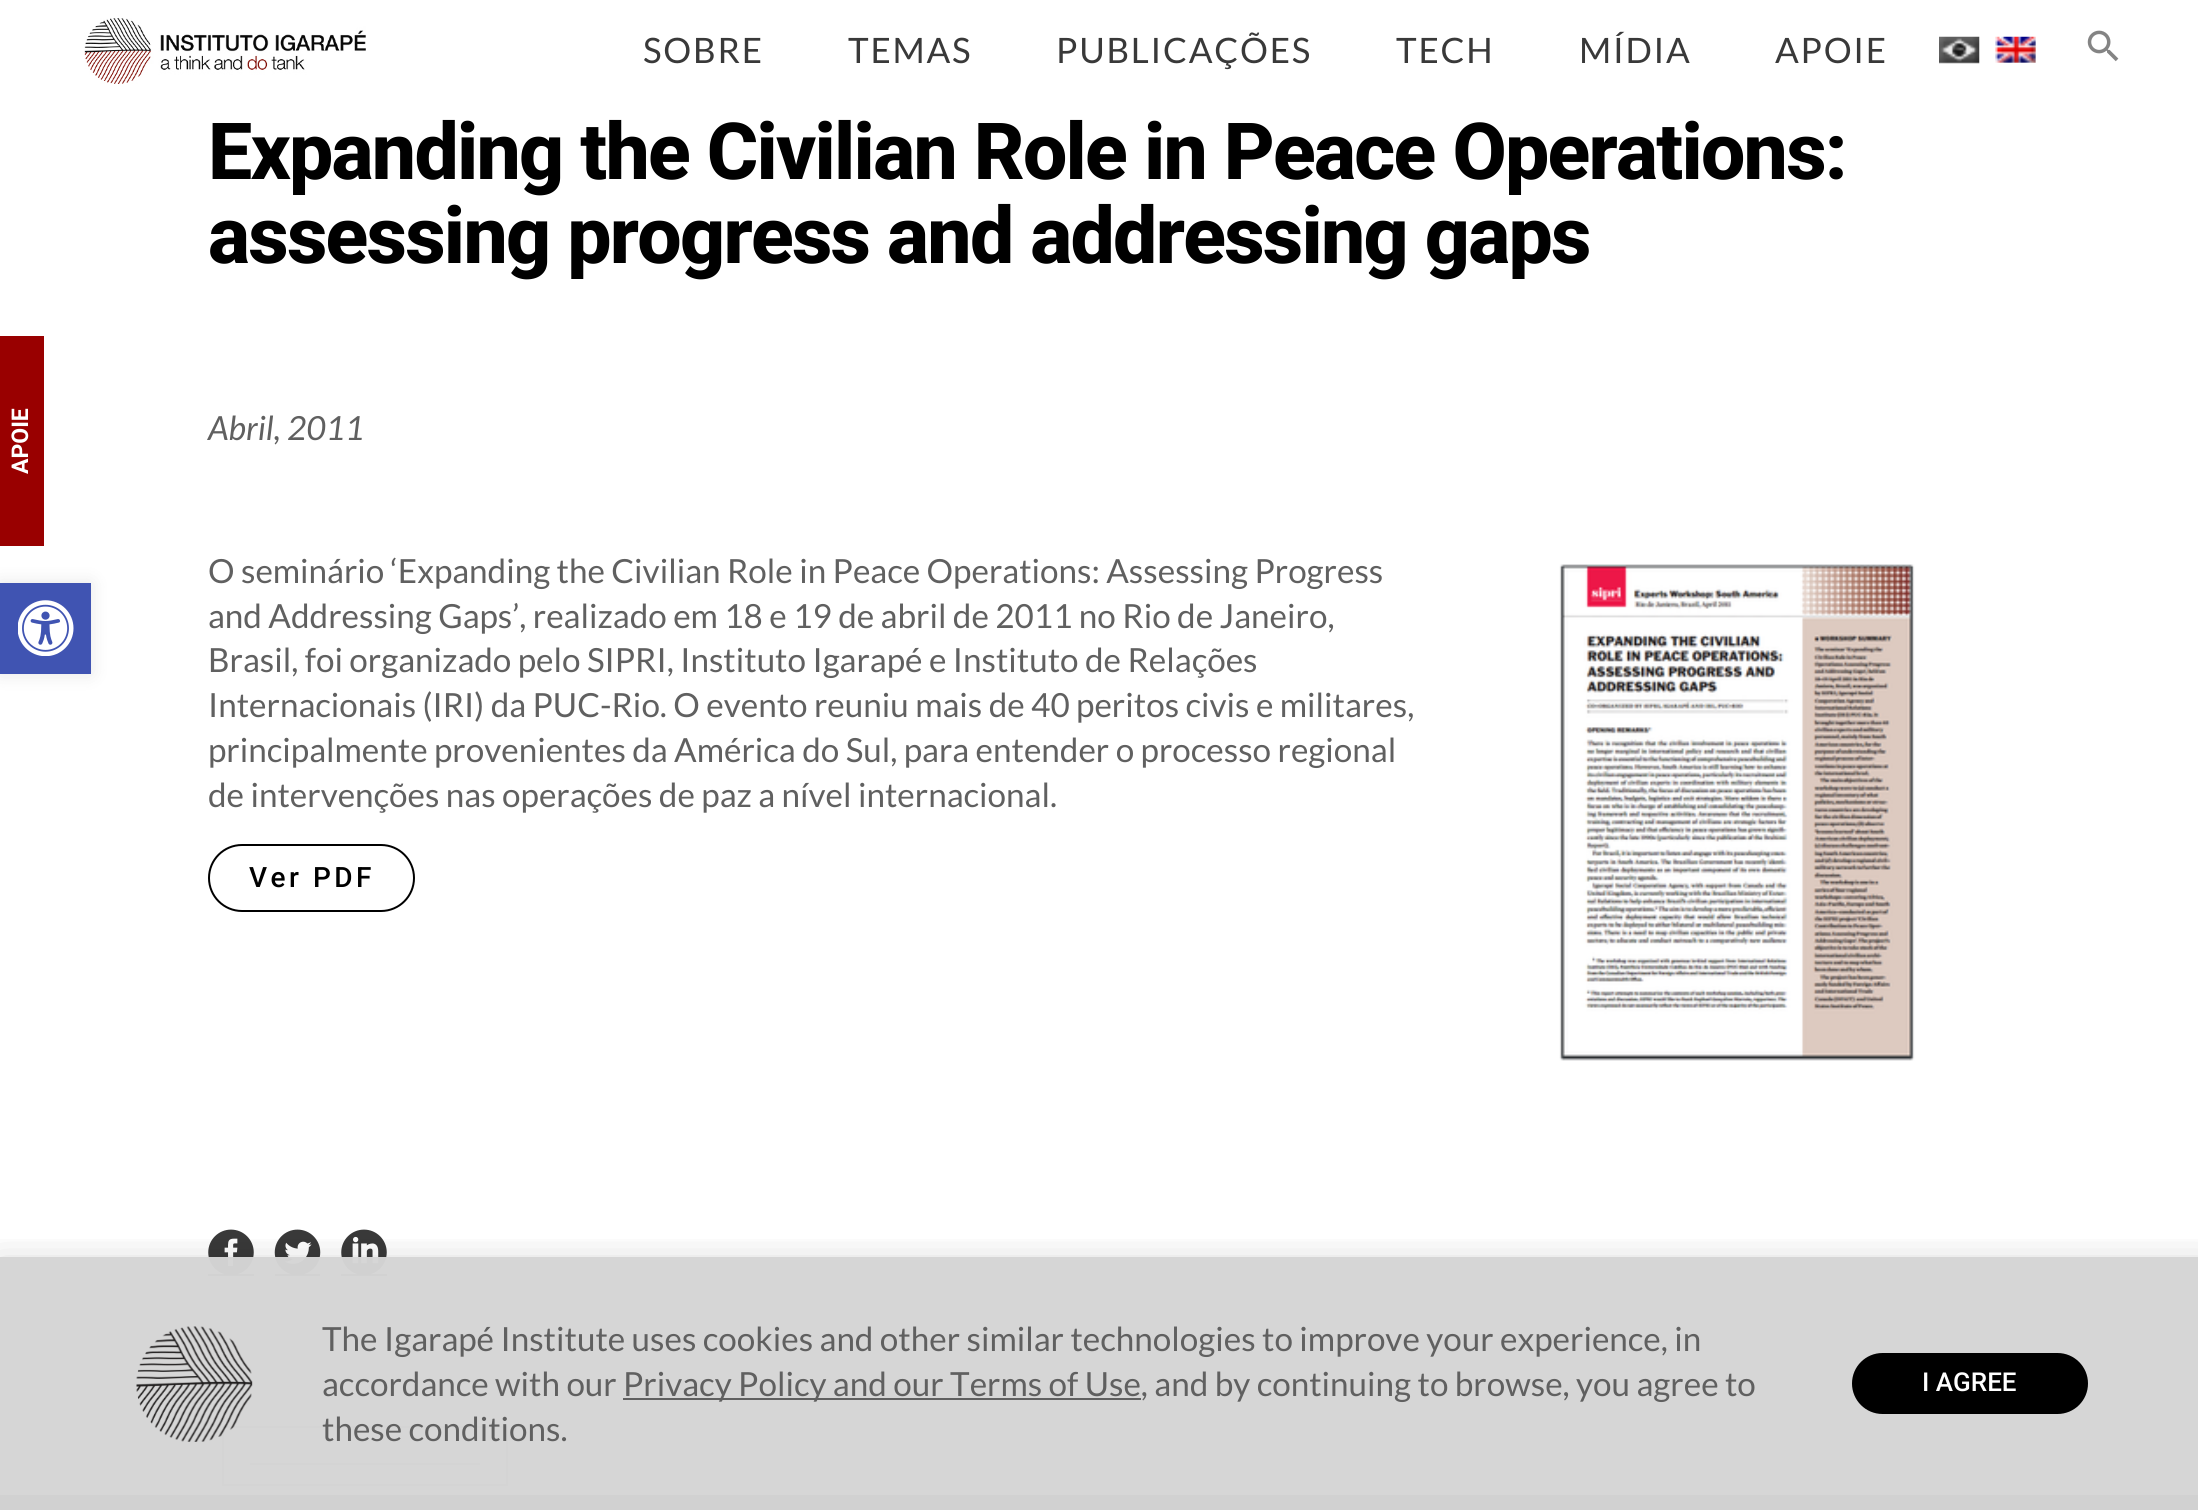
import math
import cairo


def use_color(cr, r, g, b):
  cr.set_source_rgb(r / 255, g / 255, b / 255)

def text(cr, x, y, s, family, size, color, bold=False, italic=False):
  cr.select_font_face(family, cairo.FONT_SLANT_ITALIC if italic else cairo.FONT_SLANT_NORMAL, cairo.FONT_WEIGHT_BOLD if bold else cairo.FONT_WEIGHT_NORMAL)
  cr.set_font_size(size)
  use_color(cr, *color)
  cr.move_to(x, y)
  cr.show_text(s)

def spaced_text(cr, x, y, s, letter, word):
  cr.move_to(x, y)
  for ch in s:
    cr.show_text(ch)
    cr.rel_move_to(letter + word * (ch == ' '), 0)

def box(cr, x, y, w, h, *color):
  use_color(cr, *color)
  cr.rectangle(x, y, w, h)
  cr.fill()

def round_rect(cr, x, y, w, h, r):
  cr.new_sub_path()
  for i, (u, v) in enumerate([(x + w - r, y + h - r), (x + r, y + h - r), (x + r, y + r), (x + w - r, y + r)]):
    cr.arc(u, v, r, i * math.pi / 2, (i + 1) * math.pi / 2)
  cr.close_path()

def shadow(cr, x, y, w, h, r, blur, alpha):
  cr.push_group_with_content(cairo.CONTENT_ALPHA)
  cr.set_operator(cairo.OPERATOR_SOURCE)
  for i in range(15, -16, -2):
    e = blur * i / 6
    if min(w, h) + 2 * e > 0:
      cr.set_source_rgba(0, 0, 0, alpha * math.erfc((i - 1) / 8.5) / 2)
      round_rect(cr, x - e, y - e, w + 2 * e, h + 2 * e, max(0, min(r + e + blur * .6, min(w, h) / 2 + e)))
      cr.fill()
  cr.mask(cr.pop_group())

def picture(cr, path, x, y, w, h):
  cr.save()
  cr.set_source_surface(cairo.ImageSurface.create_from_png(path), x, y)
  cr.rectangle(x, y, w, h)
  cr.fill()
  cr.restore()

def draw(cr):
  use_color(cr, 255, 255, 255)
  cr.paint()
  picture(cr, "img_01.png", 84, 18, 282, 66)
  picture(cr, "img_02.png", 1939, 36, 41, 28)
  picture(cr, "img_03.png", 1995, 36, 41, 27)
  picture(cr, "img_04.png", 2087, 30, 32, 32)
  box(cr, 0, 336, 44, 210, 153, 0, 0)
  box(cr, 0, 1495, 2198, 15, 57, 57, 57)
  picture(cr, "img_05.png", 1559, 564, 356, 497)
  round_rect(cr, 209, 845, 205, 66, 33)
  use_color(cr, 0, 0, 0)
  cr.stroke()
  box(cr, 208, 1274, 46, 2, 96, 96, 96)
  picture(cr, "img_06.png", 208, 1229, 46, 46)
  box(cr, 275, 1274, 45, 2, 96, 96, 96)
  picture(cr, "img_07.png", 274, 1229, 47, 46)
  box(cr, 341, 1274, 46, 2, 96, 96, 96)
  picture(cr, "img_08.png", 341, 1229, 46, 46)
  cr.rectangle(223, 1427, 284, 58)
  use_color(cr, 167, 166, 166)
  cr.stroke()
  box(cr, 250, 1463, 230, 2, 167, 166, 166)
  use_color(cr, 0, 0, 0)
  shadow(cr, 0, 583, 91, 91, 0, 9, 0.1)
  box(cr, 0, 583, 91, 91, 64, 84, 178)
  picture(cr, "img_09.png", 18, 600, 56, 56)
  cr.save()
  cr.rectangle(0, 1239, 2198, 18)
  cr.clip()
  use_color(cr, 0, 0, 0)
  shadow(cr, -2, 1265, 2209, 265, 0, 20, 0.2)
  cr.restore()
  cr.set_source_rgba(0.835, 0.835, 0.835, 0.97)
  cr.rectangle(0, 1257, 2198, 253)
  cr.fill()
  picture(cr, "img_10.png", 136, 1326, 117, 116)
  box(cr, 623, 1398, 518, 2, 96, 96, 96)
  use_color(cr, 0, 0, 0)
  round_rect(cr, 1852, 1353, 236, 61, 30.5)
  cr.fill()
  cr.select_font_face("Lato")
  cr.set_font_size(35)
  use_color(cr, 57, 57, 57)
  spaced_text(cr, 643, 63, "SOBRE", 1.75, 0)
  spaced_text(cr, 848, 63, "TEMAS", 1.75, 0)
  spaced_text(cr, 1056, 63, "PUBLICAÇÕES", 1.75, 0)
  spaced_text(cr, 1396, 63, "TECH", 1.75, 0)
  spaced_text(cr, 1579, 63, "MÍDIA", 1.75, 0)
  spaced_text(cr, 1775, 63, "APOIE", 1.75, 0)
  cr.save()
  cr.translate(28, 474)
  cr.rotate(-90 * math.pi / 180)
  text(cr, 0, 0, "APOIE", "Roboto", 23, (255, 255, 255), bold=True)
  cr.restore()
  cr.select_font_face("Roboto ExtraBold")
  cr.set_font_size(78.75)
  use_color(cr, 0, 0, 0)
  spaced_text(cr, 208, 179, "Expanding the Civilian Role in Peace Operations:", -1.75, 0)
  spaced_text(cr, 208, 263, "assessing progress and addressing gaps", -1.75, 0)
  text(cr, 208, 440, "Abril, 2011", "Lato", 33.25, (96, 96, 96), italic=True)
  text(cr, 208, 583, "O seminário ‘Expanding the Civilian Role in Peace Operations: Assessing Progress", "Lato", 33.25, (96, 96, 96))
  text(cr, 208, 628, "and Addressing Gaps’, realizado em 18 e 19 de abril de 2011 no Rio de Janeiro,", "Lato", 33.25, (96, 96, 96))
  text(cr, 208, 672, "Brasil, foi organizado pelo SIPRI, Instituto Igarapé e Instituto de Relações", "Lato", 33.25, (96, 96, 96))
  text(cr, 208, 717, "Internacionais (IRI) da PUC-Rio. O evento reuniu mais de 40 peritos civis e militares,", "Lato", 33.25, (96, 96, 96))
  text(cr, 208, 762, "principalmente provenientes da América do Sul, para entender o processo regional", "Lato", 33.25, (96, 96, 96))
  text(cr, 208, 807, "de intervenções nas operações de paz a nível internacional.", "Lato", 33.25, (96, 96, 96))
  cr.select_font_face("Roboto Medium")
  cr.set_font_size(28)
  use_color(cr, 0, 0, 0)
  spaced_text(cr, 249, 887, "Ver PDF", 3.5, 0)
  text(cr, 322, 1351, "The Igarapé Institute uses cookies and other similar technologies to improve your experience, in", "Lato", 33.25, (96, 96, 96))
  text(cr, 322, 1396, "accordance with our", "Lato", 33.25, (96, 96, 96))
  text(cr, 623, 1396, "Privacy Policy and our Terms of Use, and by continuing to browse, you agree to", "Lato", 33.25, (96, 96, 96))
  text(cr, 322, 1441, "these conditions.", "Lato", 33.25, (96, 96, 96))
  text(cr, 1922, 1391, "I AGREE", "Roboto Medium", 26, (255, 255, 255))


surface = cairo.ImageSurface(cairo.FORMAT_RGB24, 2198, 1510)
cr = cairo.Context(surface)
options = cairo.FontOptions()
options.set_hint_metrics(cairo.HINT_METRICS_OFF)
options.set_hint_style(cairo.HINT_STYLE_NONE)
cr.set_font_options(options)
cr.set_miter_limit(4)
draw(cr)
surface.write_to_png("out.png")
